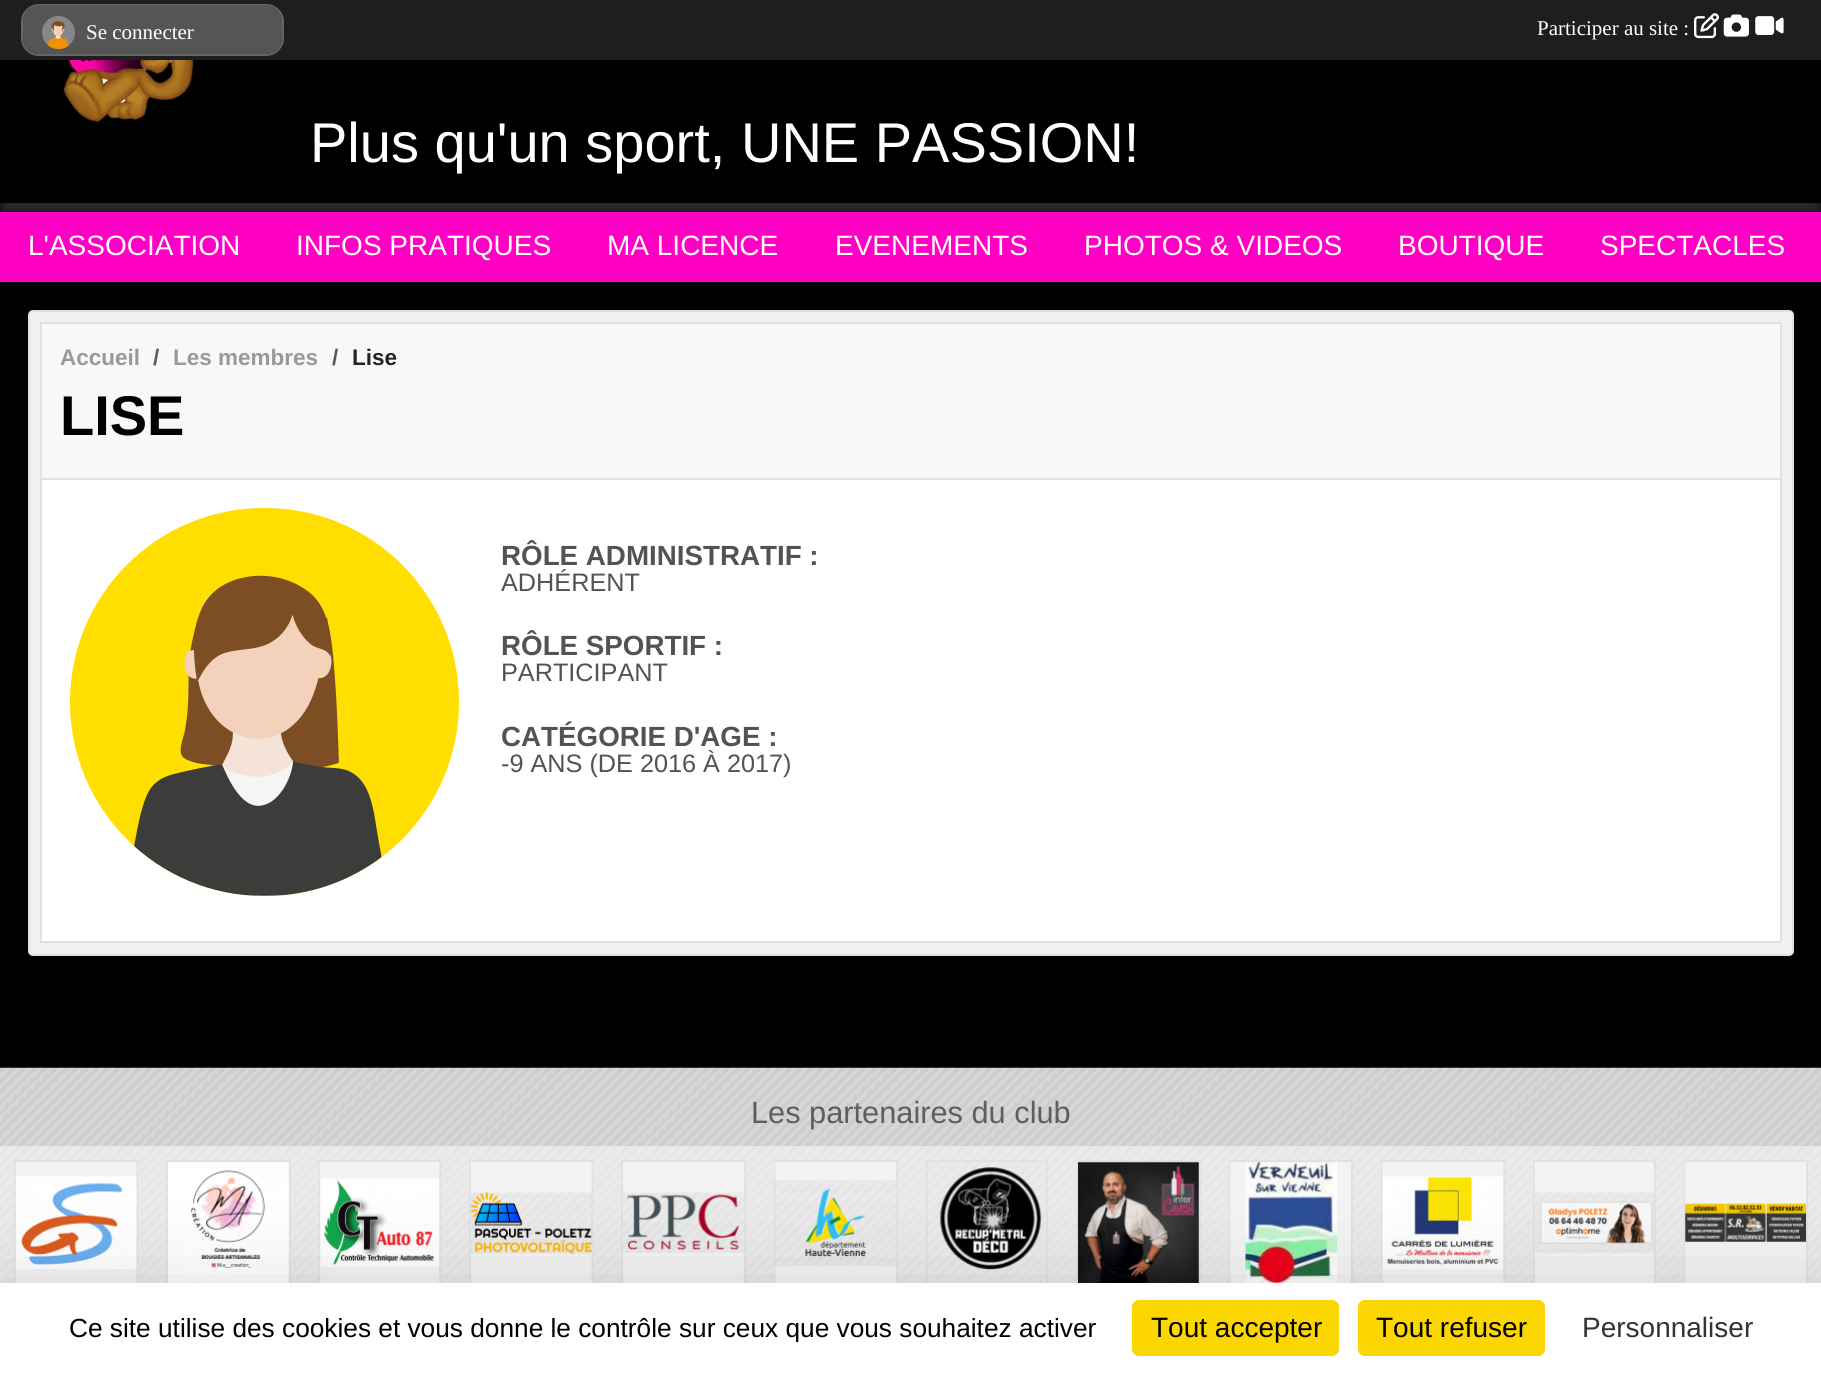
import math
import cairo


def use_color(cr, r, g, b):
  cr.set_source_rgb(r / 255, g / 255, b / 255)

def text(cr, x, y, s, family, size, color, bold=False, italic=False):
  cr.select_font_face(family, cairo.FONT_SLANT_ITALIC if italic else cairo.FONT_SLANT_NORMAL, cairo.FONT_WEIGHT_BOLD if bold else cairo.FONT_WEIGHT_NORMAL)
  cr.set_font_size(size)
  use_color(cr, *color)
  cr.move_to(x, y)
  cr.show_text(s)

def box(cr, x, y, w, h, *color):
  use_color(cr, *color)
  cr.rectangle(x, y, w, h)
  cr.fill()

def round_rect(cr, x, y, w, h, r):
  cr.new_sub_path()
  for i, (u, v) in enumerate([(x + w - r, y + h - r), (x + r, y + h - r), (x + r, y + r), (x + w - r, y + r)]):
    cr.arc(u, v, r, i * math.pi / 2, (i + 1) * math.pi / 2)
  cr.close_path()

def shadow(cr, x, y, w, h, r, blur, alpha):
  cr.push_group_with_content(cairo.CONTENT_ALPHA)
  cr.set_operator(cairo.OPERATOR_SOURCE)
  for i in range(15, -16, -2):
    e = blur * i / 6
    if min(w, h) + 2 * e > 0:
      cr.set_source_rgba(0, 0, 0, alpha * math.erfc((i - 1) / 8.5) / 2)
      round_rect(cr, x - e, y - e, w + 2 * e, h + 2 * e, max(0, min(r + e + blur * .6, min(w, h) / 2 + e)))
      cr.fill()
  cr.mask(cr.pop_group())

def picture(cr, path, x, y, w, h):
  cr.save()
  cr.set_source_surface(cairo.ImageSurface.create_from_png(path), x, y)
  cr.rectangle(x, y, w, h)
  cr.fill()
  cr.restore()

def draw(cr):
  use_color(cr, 0, 0, 0)
  cr.paint()
  cr.save()
  cr.rectangle(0, 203, 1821, 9)
  cr.clip()
  use_color(cr, 80, 80, 80)
  shadow(cr, 0, -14, 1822, 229, 0, 4.5, 0.5)
  cr.restore()
  box(cr, 0, 0, 1821, 60, 30, 30, 30)
  round_rect(cr, 22, 5, 261, 50, 17)
  use_color(cr, 102, 102, 102)
  cr.stroke()
  use_color(cr, 85, 85, 85)
  round_rect(cr, 23, 5, 259, 49, 16)
  cr.fill()
  picture(cr, "img_01.png", 42, 16, 33, 33)
  picture(cr, "img_02.png", 1694, 13, 25, 26)
  picture(cr, "img_03.png", 1723, 14, 26, 23)
  picture(cr, "img_04.png", 1755, 16, 29, 19)
  picture(cr, "img_05.png", 63, 60, 131, 63)
  box(cr, 0, 212, 1821, 70, 255, 0, 196)
  use_color(cr, 240, 240, 240)
  round_rect(cr, 29, 311, 1764, 644, 4)
  cr.fill_preserve()
  use_color(cr, 225, 225, 225)
  cr.stroke()
  box(cr, 42, 480, 1738, 461, 255, 255, 255)
  cr.rectangle(41, 323, 1740, 619)
  use_color(cr, 225, 225, 225)
  cr.stroke()
  box(cr, 42, 324, 1738, 154, 248, 248, 248)
  box(cr, 42, 478, 1738, 2, 225, 225, 225)
  picture(cr, "img_06.png", 70, 508, 389, 388)
  picture(cr, "img_07.png", 0, 1067, 1821, 216)
  cr.set_source_rgba(1, 1, 1, 0.5)
  cr.rectangle(0, 1146, 152, 137)
  cr.fill()
  cr.rectangle(15, 1161, 122, 123)
  use_color(cr, 222, 226, 230)
  cr.stroke()
  picture(cr, "img_08.png", 15, 1162, 122, 121)
  cr.set_source_rgba(1, 1, 1, 0.5)
  cr.rectangle(152, 1146, 153, 137)
  cr.fill()
  cr.rectangle(167, 1161, 123, 123)
  use_color(cr, 222, 226, 230)
  cr.stroke()
  picture(cr, "img_09.png", 168, 1162, 121, 121)
  cr.set_source_rgba(1, 1, 1, 0.5)
  cr.rectangle(305, 1146, 150, 137)
  cr.fill()
  cr.rectangle(320, 1161, 120, 123)
  use_color(cr, 222, 226, 230)
  cr.stroke()
  picture(cr, "img_10.png", 320, 1162, 120, 121)
  cr.set_source_rgba(1, 1, 1, 0.5)
  cr.rectangle(455, 1146, 152, 137)
  cr.fill()
  cr.rectangle(470, 1161, 122, 123)
  use_color(cr, 222, 226, 230)
  cr.stroke()
  picture(cr, "img_11.png", 470, 1162, 122, 121)
  cr.set_source_rgba(1, 1, 1, 0.5)
  cr.rectangle(607, 1146, 153, 137)
  cr.fill()
  cr.rectangle(622, 1161, 123, 123)
  use_color(cr, 222, 226, 230)
  cr.stroke()
  picture(cr, "img_12.png", 623, 1162, 121, 121)
  cr.set_source_rgba(1, 1, 1, 0.5)
  cr.rectangle(760, 1146, 152, 137)
  cr.fill()
  cr.rectangle(775, 1161, 122, 123)
  use_color(cr, 222, 226, 230)
  cr.stroke()
  picture(cr, "img_13.png", 775, 1162, 121, 121)
  cr.set_source_rgba(1, 1, 1, 0.5)
  cr.rectangle(912, 1146, 150, 137)
  cr.fill()
  cr.rectangle(927, 1161, 120, 123)
  use_color(cr, 222, 226, 230)
  cr.stroke()
  picture(cr, "img_14.png", 939, 1167, 103, 103)
  cr.set_source_rgba(1, 1, 1, 0.5)
  cr.rectangle(1062, 1146, 153, 137)
  cr.fill()
  cr.rectangle(1077, 1161, 123, 123)
  use_color(cr, 222, 226, 230)
  cr.stroke()
  picture(cr, "img_15.png", 1078, 1162, 121, 121)
  cr.set_source_rgba(1, 1, 1, 0.5)
  cr.rectangle(1215, 1146, 152, 137)
  cr.fill()
  cr.rectangle(1230, 1161, 122, 123)
  use_color(cr, 222, 226, 230)
  cr.stroke()
  picture(cr, "img_16.png", 1230, 1162, 121, 121)
  cr.set_source_rgba(1, 1, 1, 0.5)
  cr.rectangle(1367, 1146, 152, 137)
  cr.fill()
  cr.rectangle(1382, 1161, 122, 123)
  use_color(cr, 222, 226, 230)
  cr.stroke()
  picture(cr, "img_17.png", 1382, 1162, 122, 121)
  cr.set_source_rgba(1, 1, 1, 0.5)
  cr.rectangle(1519, 1146, 151, 137)
  cr.fill()
  cr.rectangle(1534, 1161, 121, 123)
  use_color(cr, 222, 226, 230)
  cr.stroke()
  picture(cr, "img_18.png", 1534, 1162, 120, 121)
  cr.set_source_rgba(1, 1, 1, 0.5)
  cr.rectangle(1670, 1146, 151, 137)
  cr.fill()
  cr.rectangle(1685, 1161, 122, 123)
  use_color(cr, 222, 226, 230)
  cr.stroke()
  picture(cr, "img_19.png", 1685, 1162, 121, 121)
  use_color(cr, 0, 0, 0)
  shadow(cr, 0, 1318, 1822, 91, 0, 52.5, 0.25)
  box(cr, 0, 1283, 1821, 90, 255, 255, 255)
  use_color(cr, 251, 214, 0)
  round_rect(cr, 1132, 1300, 207, 56, 7)
  cr.fill()
  round_rect(cr, 1358, 1300, 187, 56, 7)
  cr.fill()
  text(cr, 86, 39, "Se connecter", "Liberation Serif", 21, (255, 255, 255))
  text(cr, 1537, 35, "Participer au site :", "Liberation Serif", 21, (255, 255, 255))
  text(cr, 310, 162, "Plus qu'un sport, UNE PASSION!", "Liberation Sans", 56, (255, 255, 255))
  text(cr, 28, 255, "L'ASSOCIATION", "Liberation Sans", 28, (255, 255, 255))
  text(cr, 296, 255, "INFOS PRATIQUES", "Liberation Sans", 28, (255, 255, 255))
  text(cr, 607, 255, "MA LICENCE", "Liberation Sans", 28, (255, 255, 255))
  text(cr, 835, 255, "EVENEMENTS", "Liberation Sans", 28, (255, 255, 255))
  text(cr, 1084, 255, "PHOTOS & VIDEOS", "Liberation Sans", 28, (255, 255, 255))
  text(cr, 1398, 255, "BOUTIQUE", "Liberation Sans", 28, (255, 255, 255))
  text(cr, 1600, 255, "SPECTACLES", "Liberation Sans", 28, (255, 255, 255))
  text(cr, 60, 365, "Accueil", "Liberation Sans", 22.5, (153, 153, 153), bold=True)
  text(cr, 153, 365, "/", "Liberation Sans", 22.5, (87, 90, 93), bold=True)
  text(cr, 173, 365, "Les membres", "Liberation Sans", 22.5, (153, 153, 153), bold=True)
  text(cr, 332, 365, "/", "Liberation Sans", 22.5, (87, 90, 93), bold=True)
  text(cr, 352, 365, "Lise", "Liberation Sans", 22.5, (33, 37, 41), bold=True)
  text(cr, 60, 435, "LISE", "Liberation Sans", 56, (0, 0, 0), bold=True)
  text(cr, 501, 565, "RÔLE ADMINISTRATIF :", "Liberation Sans", 27.75, (83, 83, 83), bold=True)
  text(cr, 501, 591, "ADHÉRENT", "Liberation Sans", 25.25, (83, 83, 83))
  text(cr, 501, 655, "RÔLE SPORTIF :", "Liberation Sans", 27.75, (83, 83, 83), bold=True)
  text(cr, 501, 681, "PARTICIPANT", "Liberation Sans", 25.25, (83, 83, 83))
  text(cr, 501, 746, "CATÉGORIE D'AGE :", "Liberation Sans", 27.75, (83, 83, 83), bold=True)
  text(cr, 501, 772, "-9 ANS (DE 2016 À 2017)", "Liberation Sans", 25.25, (83, 83, 83))
  text(cr, 751, 1123, "Les partenaires du club", "Liberation Sans", 30.75, (94, 94, 94))
  cr.save()
  cr.rectangle(51, 1313, 1062, 29)
  cr.clip()
  text(cr, 69, 1337, "Ce site utilise des cookies et vous donne le contrôle sur ceux que vous souhaitez activer", "Liberation Sans", 26.25, (0, 0, 0))
  cr.restore()
  text(cr, 1151, 1337, "Tout accepter", "Liberation Sans", 28, (0, 0, 0))
  text(cr, 1376, 1337, "Tout refuser", "Liberation Sans", 28, (0, 0, 0))
  text(cr, 1582, 1337, "Personnaliser", "Liberation Sans", 28, (51, 51, 51))


surface = cairo.ImageSurface(cairo.FORMAT_RGB24, 1821, 1373)
cr = cairo.Context(surface)
options = cairo.FontOptions()
options.set_hint_metrics(cairo.HINT_METRICS_OFF)
options.set_hint_style(cairo.HINT_STYLE_NONE)
cr.set_font_options(options)
cr.set_miter_limit(4)
draw(cr)
surface.write_to_png("out.png")
